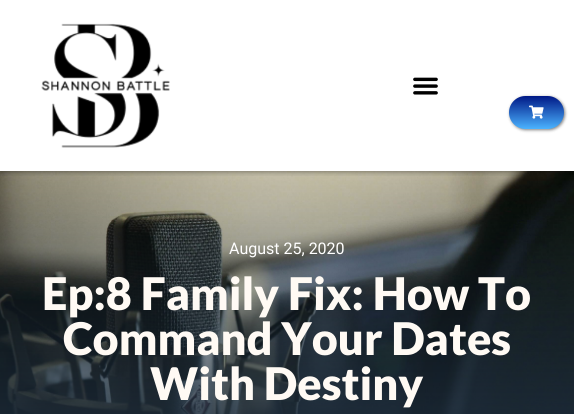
import math
import cairo


def use_color(cr, r, g, b):
  cr.set_source_rgb(r / 255, g / 255, b / 255)

def text(cr, x, y, s, family, size, color, bold=False, italic=False):
  cr.select_font_face(family, cairo.FONT_SLANT_ITALIC if italic else cairo.FONT_SLANT_NORMAL, cairo.FONT_WEIGHT_BOLD if bold else cairo.FONT_WEIGHT_NORMAL)
  cr.set_font_size(size)
  use_color(cr, *color)
  cr.move_to(x, y)
  cr.show_text(s)

def round_rect(cr, x, y, w, h, r):
  cr.new_sub_path()
  for i, (u, v) in enumerate([(x + w - r, y + h - r), (x + r, y + h - r), (x + r, y + r), (x + w - r, y + r)]):
    cr.arc(u, v, r, i * math.pi / 2, (i + 1) * math.pi / 2)
  cr.close_path()

def shadow(cr, x, y, w, h, r, blur, alpha):
  cr.push_group_with_content(cairo.CONTENT_ALPHA)
  cr.set_operator(cairo.OPERATOR_SOURCE)
  for i in range(15, -16, -2):
    e = blur * i / 6
    if min(w, h) + 2 * e > 0:
      cr.set_source_rgba(0, 0, 0, alpha * math.erfc((i - 1) / 8.5) / 2)
      round_rect(cr, x - e, y - e, w + 2 * e, h + 2 * e, max(0, min(r + e + blur * .6, min(w, h) / 2 + e)))
      cr.fill()
  cr.mask(cr.pop_group())

def picture(cr, path, x, y, w, h):
  cr.save()
  cr.set_source_surface(cairo.ImageSurface.create_from_png(path), x, y)
  cr.rectangle(x, y, w, h)
  cr.fill()
  cr.restore()

def draw(cr):
  use_color(cr, 255, 255, 255)
  cr.paint()
  picture(cr, "img_04.png", 0, 171, 574, 243)
  cr.save()
  cr.rectangle(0, 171, 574, 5)
  cr.clip()
  use_color(cr, 0, 0, 0)
  shadow(cr, 0, 0, 574, 171, 0, 3, 0.5)
  cr.restore()
  picture(cr, "img_01.png", 41, 23, 129, 125)
  picture(cr, "img_02.png", 413, 77, 25, 18)
  use_color(cr, 0, 0, 0)
  shadow(cr, 510, 97, 55, 33, 16.5, 1.5, 0.5)
  gradient = cairo.LinearGradient(537, 96, 537, 129)
  gradient.add_color_stop_rgba(0, 0, 0.094, 0.525, 1)
  gradient.add_color_stop_rgba(1, 0.294, 0.702, 1, 1)
  cr.set_source(gradient)
  round_rect(cr, 509, 96, 55, 33, 16.5)
  cr.fill()
  picture(cr, "img_03.png", 529, 105, 15, 14)
  text(cr, 229, 254, "August 25, 2020", "Roboto", 16, (255, 255, 255))
  text(cr, 42, 310, "Ep:8 Family Fix: How To", "Lato Black", 45, (255, 250, 244))
  text(cr, 63, 355, "Command Your Dates", "Lato Black", 45, (255, 250, 244))
  text(cr, 150, 400, "With Destiny", "Lato Black", 45, (255, 250, 244))


surface = cairo.ImageSurface(cairo.FORMAT_RGB24, 574, 414)
cr = cairo.Context(surface)
options = cairo.FontOptions()
options.set_hint_metrics(cairo.HINT_METRICS_OFF)
options.set_hint_style(cairo.HINT_STYLE_NONE)
cr.set_font_options(options)
cr.set_miter_limit(4)
draw(cr)
surface.write_to_png("out.png")
